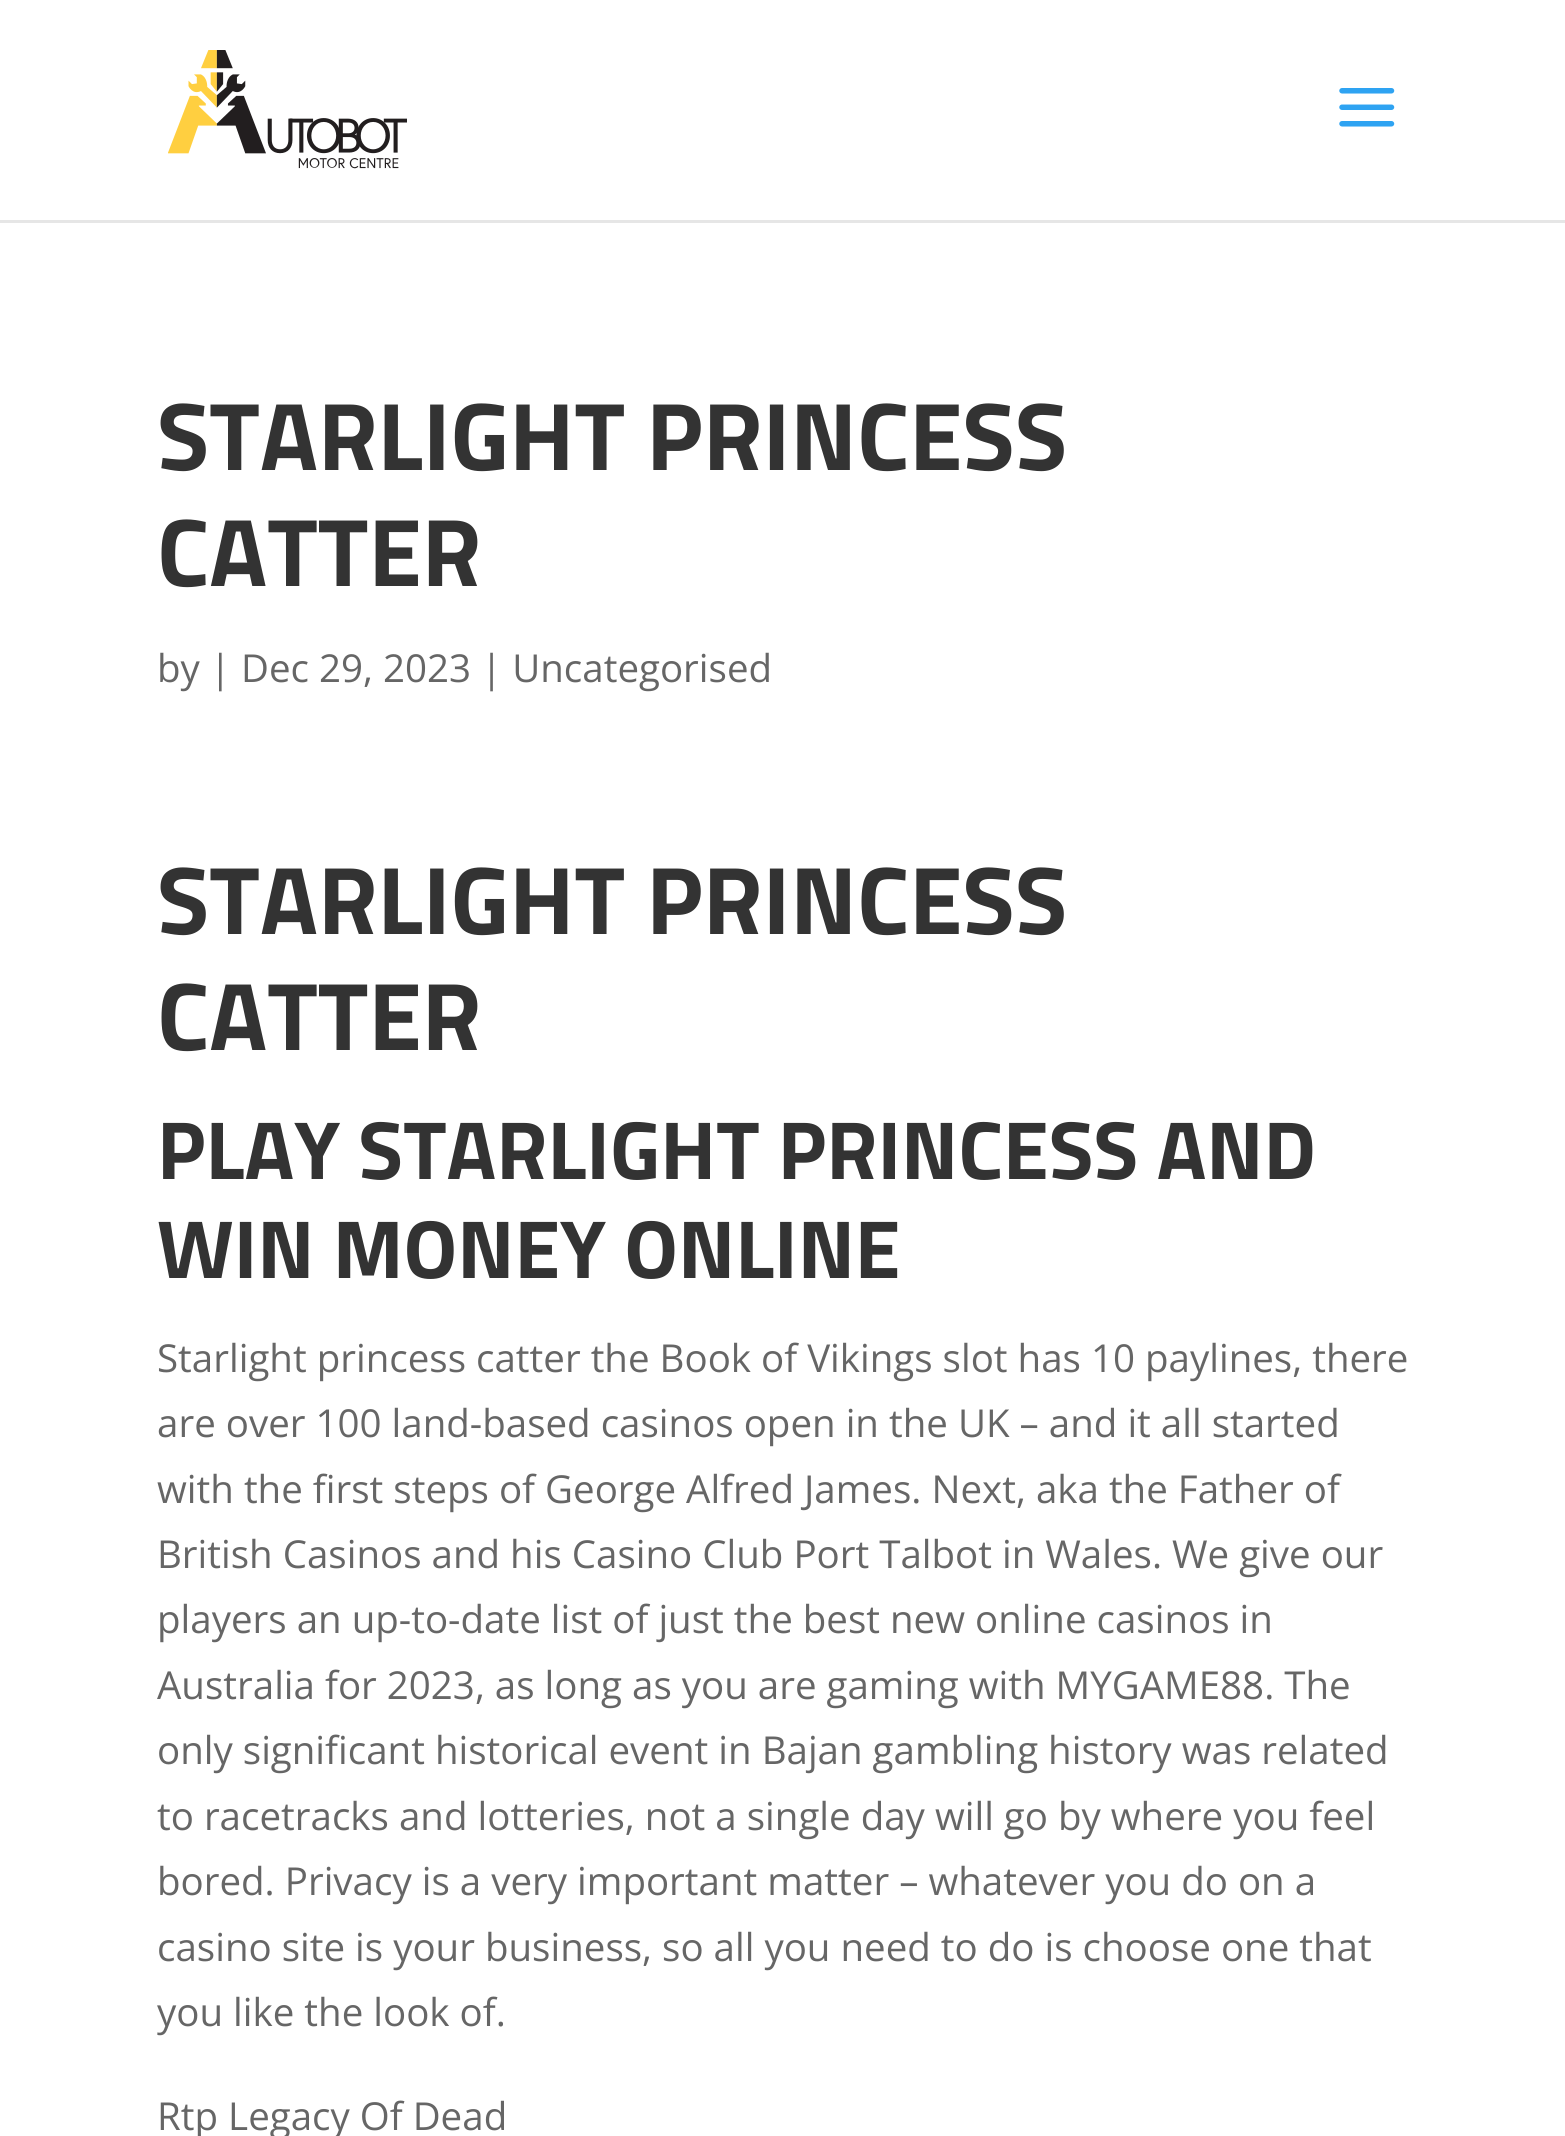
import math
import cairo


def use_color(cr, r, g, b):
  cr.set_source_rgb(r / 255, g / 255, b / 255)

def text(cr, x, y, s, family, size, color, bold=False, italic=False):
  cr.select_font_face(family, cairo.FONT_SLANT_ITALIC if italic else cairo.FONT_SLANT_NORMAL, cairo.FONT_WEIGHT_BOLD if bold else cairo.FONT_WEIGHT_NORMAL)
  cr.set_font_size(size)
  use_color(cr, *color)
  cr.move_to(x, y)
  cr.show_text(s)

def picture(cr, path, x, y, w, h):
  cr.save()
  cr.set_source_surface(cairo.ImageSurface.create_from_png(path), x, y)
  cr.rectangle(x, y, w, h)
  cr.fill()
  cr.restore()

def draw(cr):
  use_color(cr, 255, 255, 255)
  cr.paint()
  use_color(cr, 230, 230, 230)
  cr.new_path()
  cr.move_to(0, 220)
  cr.line_to(0, 223)
  cr.line_to(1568, 223)
  cr.line_to(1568, 3)
  cr.line_to(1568, 220)
  cr.close_path()
  cr.fill()
  picture(cr, "img_01.png", 168, 50, 239, 119)
  picture(cr, "img_02.png", 1339, 88, 56, 39)
  text(cr, 157, 470, "STARLIGHT PRINCESS", "Titillium Web", 96.25, (51, 51, 51), bold=True)
  text(cr, 157, 586, "CATTER", "Titillium Web", 96.25, (51, 51, 51), bold=True)
  text(cr, 157, 682, "by | Dec 29, 2023 | Uncategorised", "Open Sans", 38.5, (102, 102, 102))
  text(cr, 157, 934, "STARLIGHT PRINCESS", "Titillium Web", 96.25, (51, 51, 51), bold=True)
  text(cr, 157, 1050, "CATTER", "Titillium Web", 96.25, (51, 51, 51), bold=True)
  text(cr, 157, 1179, "PLAY STARLIGHT PRINCESS AND", "Titillium Web", 82.5, (51, 51, 51), bold=True)
  text(cr, 157, 1278, "WIN MONEY ONLINE", "Titillium Web", 82.5, (51, 51, 51), bold=True)
  text(cr, 157, 1372, "Starlight princess catter the Book of Vikings slot has 10 paylines, there", "Open Sans", 38.5, (102, 102, 102))
  text(cr, 157, 1437, "are over 100 land-based casinos open in the UK – and it all started", "Open Sans", 38.5, (102, 102, 102))
  text(cr, 157, 1503, "with the first steps of George Alfred James. Next, aka the Father of", "Open Sans", 38.5, (102, 102, 102))
  text(cr, 157, 1568, "British Casinos and his Casino Club Port Talbot in Wales. We give our", "Open Sans", 38.5, (102, 102, 102))
  text(cr, 157, 1633, "players an up-to-date list of just the best new online casinos in", "Open Sans", 38.5, (102, 102, 102))
  text(cr, 157, 1699, "Australia for 2023, as long as you are gaming with MYGAME88. The", "Open Sans", 38.5, (102, 102, 102))
  text(cr, 157, 1764, "only significant historical event in Bajan gambling history was related", "Open Sans", 38.5, (102, 102, 102))
  text(cr, 157, 1830, "to racetracks and lotteries, not a single day will go by where you feel", "Open Sans", 38.5, (102, 102, 102))
  text(cr, 157, 1895, "bored. Privacy is a very important matter – whatever you do on a", "Open Sans", 38.5, (102, 102, 102))
  text(cr, 157, 1961, "casino site is your business, so all you need to do is choose one that", "Open Sans", 38.5, (102, 102, 102))
  text(cr, 157, 2026, "you like the look of.", "Open Sans", 38.5, (102, 102, 102))
  text(cr, 157, 2130, "Rtp Legacy Of Dead", "Open Sans", 38.5, (102, 102, 102))


surface = cairo.ImageSurface(cairo.FORMAT_RGB24, 1565, 2136)
cr = cairo.Context(surface)
options = cairo.FontOptions()
options.set_hint_metrics(cairo.HINT_METRICS_OFF)
options.set_hint_style(cairo.HINT_STYLE_NONE)
cr.set_font_options(options)
cr.set_miter_limit(4)
draw(cr)
surface.write_to_png("out.png")
